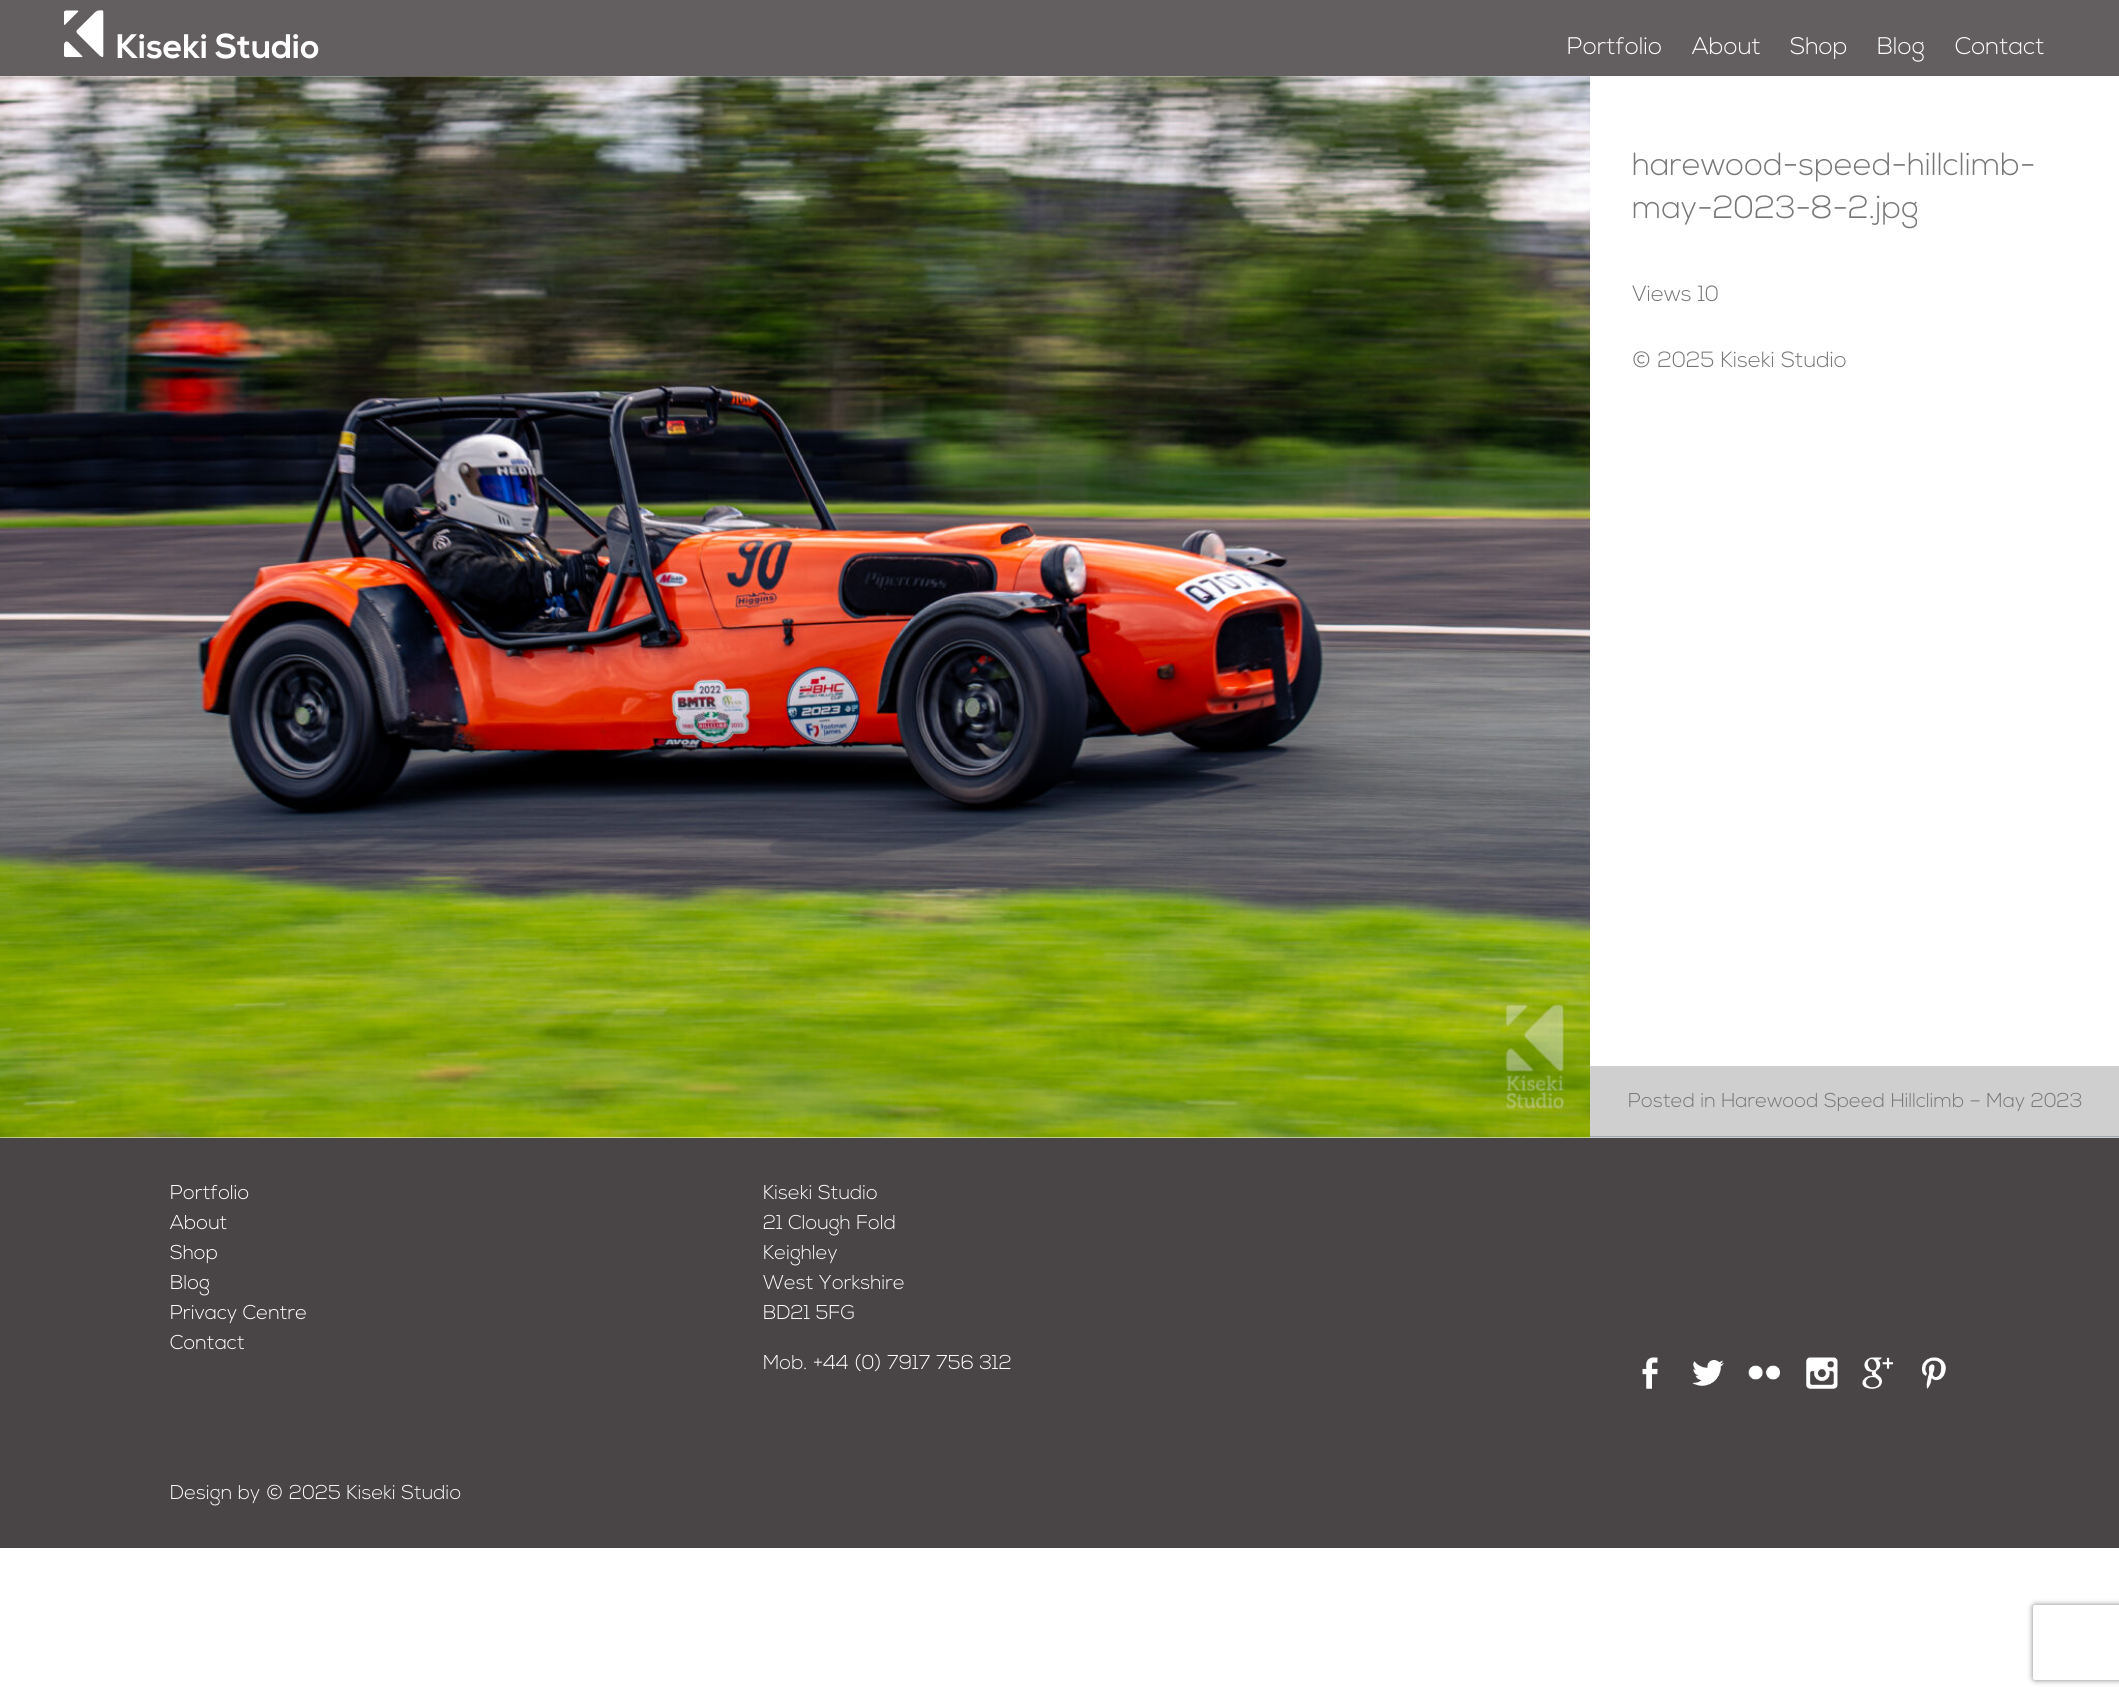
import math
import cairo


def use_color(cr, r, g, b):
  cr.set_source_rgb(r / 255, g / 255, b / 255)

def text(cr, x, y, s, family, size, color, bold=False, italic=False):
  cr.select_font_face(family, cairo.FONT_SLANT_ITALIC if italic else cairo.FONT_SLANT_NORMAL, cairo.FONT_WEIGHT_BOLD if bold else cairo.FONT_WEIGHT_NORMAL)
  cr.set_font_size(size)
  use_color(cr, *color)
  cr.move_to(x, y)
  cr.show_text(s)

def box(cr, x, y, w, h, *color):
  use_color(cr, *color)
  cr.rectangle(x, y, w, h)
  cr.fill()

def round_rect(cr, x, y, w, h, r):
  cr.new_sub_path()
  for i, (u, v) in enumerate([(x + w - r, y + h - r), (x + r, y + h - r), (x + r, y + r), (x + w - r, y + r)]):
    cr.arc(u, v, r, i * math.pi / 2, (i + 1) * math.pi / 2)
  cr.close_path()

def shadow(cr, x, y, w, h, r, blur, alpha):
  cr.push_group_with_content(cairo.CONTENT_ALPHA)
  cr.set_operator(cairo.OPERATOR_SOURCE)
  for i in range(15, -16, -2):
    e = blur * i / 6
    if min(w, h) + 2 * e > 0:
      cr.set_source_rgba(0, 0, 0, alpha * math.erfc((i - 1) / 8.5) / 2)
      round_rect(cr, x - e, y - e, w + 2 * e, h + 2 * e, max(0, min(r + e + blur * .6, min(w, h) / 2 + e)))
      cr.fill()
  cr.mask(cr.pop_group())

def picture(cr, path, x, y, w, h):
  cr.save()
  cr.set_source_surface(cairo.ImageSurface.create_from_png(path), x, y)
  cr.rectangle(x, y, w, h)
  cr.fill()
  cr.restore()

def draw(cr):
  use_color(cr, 255, 255, 255)
  cr.paint()
  box(cr, 0, 0, 2119, 76, 99, 94, 95)
  picture(cr, "img_01.png", 64, 10, 40, 48)
  picture(cr, "img_02.png", 0, 76, 1590, 1062)
  box(cr, 1590, 1066, 529, 72, 207, 207, 207)
  box(cr, 1590, 1136, 529, 1, 159, 166, 180)
  box(cr, 0, 1138, 2119, 410, 73, 69, 70)
  picture(cr, "img_03.png", 1642, 1357, 16, 32)
  picture(cr, "img_04.png", 1692, 1360, 32, 26)
  picture(cr, "img_05.png", 1748, 1365, 32, 15)
  picture(cr, "img_06.png", 1806, 1357, 32, 32)
  picture(cr, "img_07.png", 1862, 1357, 31, 32)
  picture(cr, "img_08.png", 1922, 1357, 24, 32)
  cr.save()
  cr.set_fill_rule(cairo.FILL_RULE_EVEN_ODD)
  cr.new_path()
  cr.move_to(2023, 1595)
  cr.line_to(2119, 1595)
  cr.line_to(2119, 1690)
  cr.line_to(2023, 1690)
  cr.close_path()
  cr.move_to(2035.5, 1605)
  cr.line_to(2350.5, 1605)
  cr.curve_to(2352, 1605, 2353, 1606, 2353, 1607.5)
  cr.line_to(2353, 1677.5)
  cr.curve_to(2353, 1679, 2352, 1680, 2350.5, 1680)
  cr.line_to(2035.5, 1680)
  cr.curve_to(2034, 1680, 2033, 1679, 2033, 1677.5)
  cr.line_to(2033, 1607.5)
  cr.curve_to(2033, 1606, 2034, 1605, 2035.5, 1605)
  cr.close_path()
  cr.clip()
  use_color(cr, 128, 128, 128)
  shadow(cr, 2033, 1605, 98, 75, 2.5, 3, 1)
  cr.restore()
  text(cr, 116, 58, "Kiseki Studio", "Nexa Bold", 34, (255, 255, 255), bold=True)
  text(cr, 1567, 54, "Portfolio", "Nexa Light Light", 24, (255, 255, 255))
  text(cr, 1692, 54, "About", "Nexa Light Light", 24, (255, 255, 255))
  text(cr, 1790, 54, "Shop", "Nexa Light Light", 24, (255, 255, 255))
  text(cr, 1877, 54, "Blog", "Nexa Light Light", 24, (255, 255, 255))
  text(cr, 1955, 54, "Contact", "Nexa Light Light", 24, (255, 255, 255))
  text(cr, 1632, 175, "harewood-speed-hillclimb-", "Nexa Light Light", 32, (119, 119, 119))
  text(cr, 1632, 218, "may-2023-8-2.jpg", "Nexa Light Light", 32, (119, 119, 119))
  text(cr, 1632, 301, "Views 10", "Nexa Light Light", 22, (119, 119, 119))
  text(cr, 1632, 367, "© 2025 Kiseki Studio", "Nexa Light Light", 22, (119, 119, 119))
  text(cr, 1628, 1107, "Posted in Harewood Speed Hillclimb – May 2023", "Nexa Light Light", 20, (119, 119, 119))
  text(cr, 170, 1199, "Portfolio", "Nexa Light Light", 20, (255, 255, 255))
  text(cr, 170, 1229, "About", "Nexa Light Light", 20, (255, 255, 255))
  text(cr, 170, 1259, "Shop", "Nexa Light Light", 20, (255, 255, 255))
  text(cr, 170, 1289, "Blog", "Nexa Light Light", 20, (255, 255, 255))
  text(cr, 170, 1319, "Privacy Centre", "Nexa Light Light", 20, (255, 255, 255))
  text(cr, 170, 1349, "Contact", "Nexa Light Light", 20, (255, 255, 255))
  text(cr, 763, 1199, "Kiseki Studio", "Nexa Light Light", 20, (248, 249, 250))
  text(cr, 763, 1229, "21 Clough Fold", "Nexa Light Light", 20, (248, 249, 250))
  text(cr, 763, 1259, "Keighley", "Nexa Light Light", 20, (248, 249, 250))
  text(cr, 763, 1289, "West Yorkshire", "Nexa Light Light", 20, (248, 249, 250))
  text(cr, 763, 1319, "BD21 5FG", "Nexa Light Light", 20, (248, 249, 250))
  text(cr, 763, 1369, "Mob.", "Nexa Light Light", 20, (248, 249, 250))
  text(cr, 813, 1369, "+44 (0) 7917 756 312", "Nexa Light Light", 20, (255, 255, 255))
  text(cr, 170, 1499, "Design by © 2025 Kiseki Studio", "Nexa Light Light", 20, (248, 249, 250))


surface = cairo.ImageSurface(cairo.FORMAT_RGB24, 2119, 1697)
cr = cairo.Context(surface)
options = cairo.FontOptions()
options.set_hint_metrics(cairo.HINT_METRICS_OFF)
options.set_hint_style(cairo.HINT_STYLE_NONE)
cr.set_font_options(options)
cr.set_miter_limit(4)
draw(cr)
surface.write_to_png("out.png")
